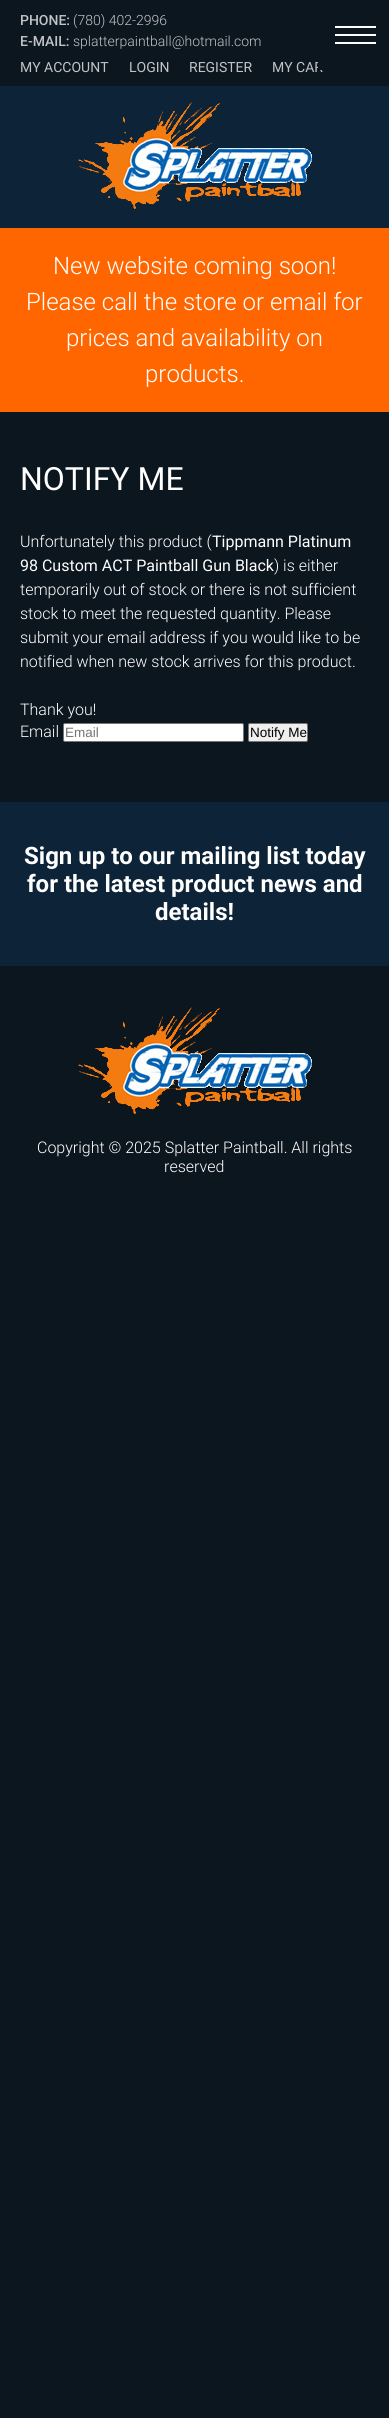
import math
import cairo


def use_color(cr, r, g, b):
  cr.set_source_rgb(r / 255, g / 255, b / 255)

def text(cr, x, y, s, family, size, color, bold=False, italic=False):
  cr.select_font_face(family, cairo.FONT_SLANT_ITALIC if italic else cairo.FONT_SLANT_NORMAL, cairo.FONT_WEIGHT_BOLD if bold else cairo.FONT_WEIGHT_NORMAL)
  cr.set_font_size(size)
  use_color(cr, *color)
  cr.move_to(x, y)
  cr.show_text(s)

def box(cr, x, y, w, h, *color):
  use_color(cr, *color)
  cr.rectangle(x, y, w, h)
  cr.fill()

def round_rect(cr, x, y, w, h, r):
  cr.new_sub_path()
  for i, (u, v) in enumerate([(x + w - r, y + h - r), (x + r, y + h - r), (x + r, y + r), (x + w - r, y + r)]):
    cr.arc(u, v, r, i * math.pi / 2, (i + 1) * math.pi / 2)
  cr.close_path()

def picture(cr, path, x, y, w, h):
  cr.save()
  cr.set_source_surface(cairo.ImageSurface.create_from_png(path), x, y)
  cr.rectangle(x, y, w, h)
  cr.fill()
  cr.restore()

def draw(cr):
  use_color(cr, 12, 22, 31)
  cr.paint()
  box(cr, 335, 34, 41, 2, 255, 255, 255)
  box(cr, 335, 26, 41, 2, 255, 255, 255)
  box(cr, 335, 42, 41, 2, 255, 255, 255)
  box(cr, 0, 86, 389, 142, 13, 35, 55)
  picture(cr, "img_01.png", 78, 101, 234, 108)
  box(cr, 0, 228, 389, 184, 255, 102, 0)
  use_color(cr, 255, 255, 255)
  round_rect(cr, 63.5, 723.5, 180, 18, 1.5)
  cr.fill_preserve()
  use_color(cr, 118, 118, 118)
  cr.set_line_width(1)
  cr.stroke()
  use_color(cr, 239, 239, 239)
  round_rect(cr, 248.5, 723.5, 59, 18, 1.5)
  cr.fill_preserve()
  use_color(cr, 118, 118, 118)
  cr.stroke()
  box(cr, 0, 802, 389, 164, 13, 35, 55)
  picture(cr, "img_02.png", 78, 1006, 234, 108)
  text(cr, 20, 25, "PHONE:", "Roboto Medium", 14, (193, 196, 199))
  text(cr, 73, 25, "(780) 402-2996", "Roboto Light", 14, (193, 196, 199))
  text(cr, 20, 46, "E-MAIL:", "Roboto Medium", 14, (193, 196, 199))
  text(cr, 73, 46, "splatterpaintball@hotmail.com", "Roboto Light", 14, (193, 196, 199))
  text(cr, 20, 72, "MY ACCOUNT", "Roboto", 14, (193, 196, 199))
  text(cr, 129, 72, "LOGIN", "Roboto", 14, (193, 196, 199))
  text(cr, 189, 72, "REGISTER", "Roboto", 14, (193, 196, 199))
  text(cr, 272, 72, "MY CAR", "Roboto", 14, (193, 196, 199))
  box(cr, 318, 62, 5, 8, 12, 22, 31)
  text(cr, 53, 274, "New website coming soon!", "Roboto Light", 24, (255, 255, 255))
  text(cr, 26, 310, "Please call the store or email for", "Roboto Light", 24, (255, 255, 255))
  text(cr, 66, 346, "prices and availability on", "Roboto Light", 24, (255, 255, 255))
  text(cr, 145, 382, "products.", "Roboto Light", 24, (255, 255, 255))
  text(cr, 20, 490, "NOTIFY ME", "Roboto", 32, (255, 255, 255))
  text(cr, 20, 547, "Unfortunately this product (", "Roboto Light", 16, (255, 255, 255))
  text(cr, 212, 547, "Tippmann Platinum", "Roboto", 16, (255, 255, 255))
  text(cr, 20, 571, "98 Custom ACT Paintball Gun Black", "Roboto", 16, (255, 255, 255))
  text(cr, 274, 571, ") is either", "Roboto Light", 16, (255, 255, 255))
  text(cr, 20, 595, "temporarily out of stock or there is not sufficient", "Roboto Light", 16, (255, 255, 255))
  text(cr, 20, 619, "stock to meet the requested quantity. Please", "Roboto Light", 16, (255, 255, 255))
  text(cr, 20, 643, "submit your email address if you would like to be", "Roboto Light", 16, (255, 255, 255))
  text(cr, 20, 667, "notified when new stock arrives for this product.", "Roboto Light", 16, (255, 255, 255))
  text(cr, 20, 715, "Thank you!", "Roboto Light", 16, (255, 255, 255))
  text(cr, 20, 737, "Email", "Roboto Light", 16, (255, 255, 255))
  text(cr, 65, 737, "Email", "Liberation Sans", 13.5, (117, 117, 117))
  text(cr, 250, 737, "Notify Me", "Liberation Sans", 13.5, (0, 0, 0))
  text(cr, 24, 864, "Sign up to our mailing list today", "Roboto", 24, (255, 255, 255), bold=True)
  text(cr, 27, 892, "for the latest product news and", "Roboto", 24, (255, 255, 255), bold=True)
  text(cr, 155, 920, "details!", "Roboto", 24, (255, 255, 255), bold=True)
  text(cr, 37, 1153, "Copyright © 2025 Splatter Paintball. All rights", "Roboto Light", 16, (255, 255, 255))
  text(cr, 164, 1172, "reserved", "Roboto Light", 16, (255, 255, 255))


surface = cairo.ImageSurface(cairo.FORMAT_RGB24, 389, 2418)
cr = cairo.Context(surface)
options = cairo.FontOptions()
options.set_hint_metrics(cairo.HINT_METRICS_OFF)
options.set_hint_style(cairo.HINT_STYLE_NONE)
cr.set_font_options(options)
cr.set_miter_limit(4)
draw(cr)
surface.write_to_png("out.png")
